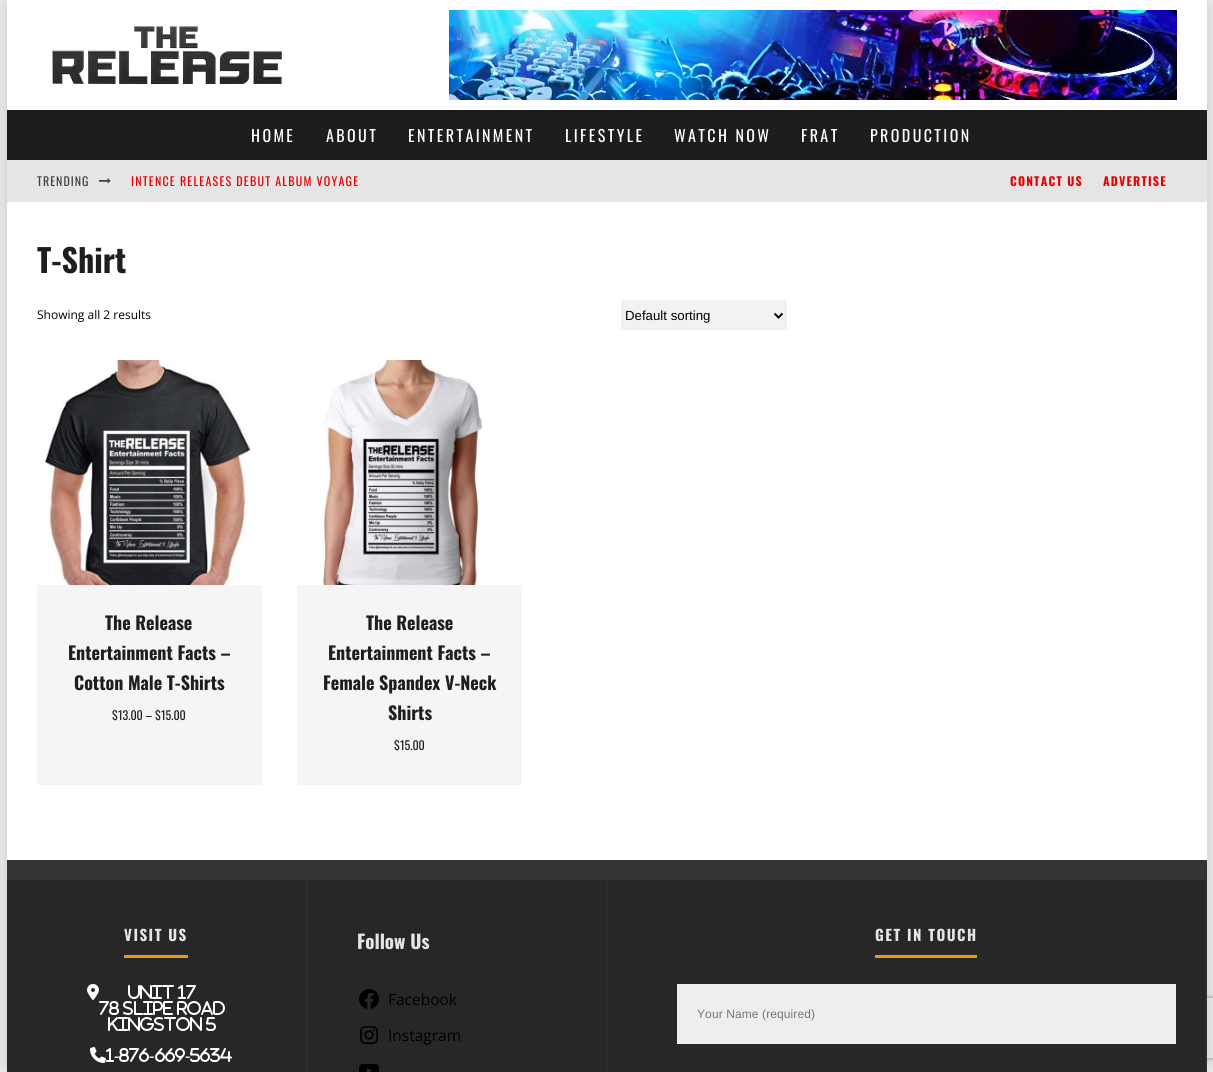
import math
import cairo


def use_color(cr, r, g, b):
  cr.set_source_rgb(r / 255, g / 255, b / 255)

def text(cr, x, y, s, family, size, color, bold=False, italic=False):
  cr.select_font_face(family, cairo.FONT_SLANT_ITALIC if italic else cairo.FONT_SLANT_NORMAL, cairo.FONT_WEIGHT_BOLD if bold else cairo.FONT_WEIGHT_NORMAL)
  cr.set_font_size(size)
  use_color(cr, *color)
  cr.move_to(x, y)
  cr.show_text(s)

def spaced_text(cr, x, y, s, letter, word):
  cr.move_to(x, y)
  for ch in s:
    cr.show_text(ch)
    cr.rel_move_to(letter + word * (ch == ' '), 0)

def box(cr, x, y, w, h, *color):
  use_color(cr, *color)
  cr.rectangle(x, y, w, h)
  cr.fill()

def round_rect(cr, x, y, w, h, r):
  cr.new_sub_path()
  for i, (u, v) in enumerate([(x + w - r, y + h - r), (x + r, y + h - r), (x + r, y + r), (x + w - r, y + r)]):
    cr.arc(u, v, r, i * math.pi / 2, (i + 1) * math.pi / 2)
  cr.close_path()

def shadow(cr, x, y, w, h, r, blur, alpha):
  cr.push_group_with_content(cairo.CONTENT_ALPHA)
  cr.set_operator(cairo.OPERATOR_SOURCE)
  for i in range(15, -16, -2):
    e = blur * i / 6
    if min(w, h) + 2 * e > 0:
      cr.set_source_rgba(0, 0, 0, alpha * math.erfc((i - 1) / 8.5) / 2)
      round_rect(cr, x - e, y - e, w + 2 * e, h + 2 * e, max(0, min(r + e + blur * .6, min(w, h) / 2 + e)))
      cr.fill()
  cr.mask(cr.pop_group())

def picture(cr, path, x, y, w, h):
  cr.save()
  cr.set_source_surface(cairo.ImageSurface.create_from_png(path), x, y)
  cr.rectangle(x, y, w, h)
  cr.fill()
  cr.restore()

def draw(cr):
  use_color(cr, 255, 255, 255)
  cr.paint()
  cr.save()
  cr.set_fill_rule(cairo.FILL_RULE_EVEN_ODD)
  cr.new_path()
  cr.move_to(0, 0)
  cr.line_to(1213, 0)
  cr.line_to(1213, 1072)
  cr.line_to(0, 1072)
  cr.close_path()
  cr.move_to(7, 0)
  cr.line_to(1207, 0)
  cr.line_to(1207, 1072)
  cr.line_to(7, 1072)
  cr.close_path()
  cr.clip()
  use_color(cr, 0, 0, 0)
  shadow(cr, -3, 0, 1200, 1072, 0, 15, 0.15)
  shadow(cr, 17, 0, 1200, 1072, 0, 15, 0.15)
  cr.restore()
  picture(cr, "img_01.png", 52, 26, 230, 58)
  picture(cr, "img_02.png", 449, 10, 728, 90)
  box(cr, 7, 110, 1200, 50, 29, 29, 29)
  box(cr, 7, 160, 1200, 42, 229, 229, 229)
  picture(cr, "img_03.png", 99, 178, 12, 6)
  box(cr, 621, 300, 166, 30, 242, 242, 242)
  cr.new_path()
  cr.move_to(774.5, 313.5)
  cr.line_to(778.5, 317.5)
  cr.line_to(782.5, 313.5)
  use_color(cr, 0, 0, 0)
  cr.stroke()
  box(cr, 37, 585, 225, 200, 245, 245, 245)
  picture(cr, "img_04.png", 37, 360, 225, 225)
  box(cr, 297, 585, 225, 200, 245, 245, 245)
  picture(cr, "img_05.png", 297, 360, 225, 225)
  box(cr, 7, 860, 1200, 20, 51, 51, 51)
  cr.save()
  cr.set_fill_rule(cairo.FILL_RULE_EVEN_ODD)
  cr.new_path()
  cr.move_to(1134, 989)
  cr.line_to(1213, 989)
  cr.line_to(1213, 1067)
  cr.line_to(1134, 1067)
  cr.close_path()
  cr.move_to(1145, 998)
  cr.line_to(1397, 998)
  cr.curve_to(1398, 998, 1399, 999, 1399, 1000)
  cr.line_to(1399, 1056)
  cr.curve_to(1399, 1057, 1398, 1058, 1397, 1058)
  cr.line_to(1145, 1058)
  cr.curve_to(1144, 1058, 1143, 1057, 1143, 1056)
  cr.line_to(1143, 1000)
  cr.curve_to(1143, 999, 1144, 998, 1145, 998)
  cr.close_path()
  cr.clip()
  use_color(cr, 128, 128, 128)
  shadow(cr, 1143, 998, 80, 60, 2, 2.5, 1)
  cr.restore()
  box(cr, 7, 880, 1199, 192, 39, 39, 39)
  box(cr, 306, 880, 1, 192, 51, 51, 51)
  box(cr, 124, 955, 64, 3, 235, 152, 18)
  picture(cr, "img_06.png", 87, 984, 12, 16)
  picture(cr, "img_07.png", 128, 985, 46, 14)
  picture(cr, "img_08.png", 178, 985, 18, 14)
  picture(cr, "img_09.png", 99, 1001, 20, 14)
  picture(cr, "img_10.png", 123, 1001, 50, 14)
  picture(cr, "img_11.png", 177, 1001, 48, 14)
  picture(cr, "img_12.png", 108, 1017, 94, 14)
  picture(cr, "img_13.png", 206, 1017, 10, 14)
  picture(cr, "img_14.png", 90, 1047, 16, 16)
  picture(cr, "img_15.png", 106, 1048, 8, 14)
  picture(cr, "img_16.png", 119, 1048, 30, 14)
  picture(cr, "img_17.png", 155, 1048, 30, 14)
  picture(cr, "img_18.png", 190, 1048, 42, 14)
  box(cr, 606, 880, 1, 192, 51, 51, 51)
  picture(cr, "img_19.png", 359, 989, 20, 20)
  picture(cr, "img_20.png", 360, 1026, 18, 18)
  picture(cr, "img_21.png", 359, 1064, 20, 8)
  box(cr, 1206, 880, 1, 192, 51, 51, 51)
  box(cr, 875, 955, 102, 3, 235, 152, 18)
  box(cr, 677, 984, 499, 60, 238, 238, 238)
  cr.select_font_face("Oswald")
  cr.set_font_size(16)
  use_color(cr, 255, 255, 255)
  spaced_text(cr, 251, 142, "HOME", 2.4, 0)
  spaced_text(cr, 326, 142, "ABOUT", 2.4, 0)
  spaced_text(cr, 408, 142, "ENTERTAINMENT", 2.4, 0)
  spaced_text(cr, 565, 142, "LIFESTYLE", 2.4, 0)
  spaced_text(cr, 674, 142, "WATCH NOW", 2.4, 0)
  spaced_text(cr, 801, 142, "FRAT", 2.4, 0)
  spaced_text(cr, 870, 142, "PRODUCTION", 2.4, 0)
  cr.set_font_size(12)
  use_color(cr, 66, 66, 66)
  spaced_text(cr, 37, 186, "TRENDING", 1, 0)
  use_color(cr, 229, 1, 0)
  spaced_text(cr, 131, 186, "INTENCE RELEASES DEBUT ALBUM VOYAGE", 1.2, 0)
  cr.select_font_face("Oswald", cairo.FONT_SLANT_NORMAL, cairo.FONT_WEIGHT_BOLD)
  spaced_text(cr, 1010, 186, "CONTACT US", 1.2, 0)
  spaced_text(cr, 1103, 186, "ADVERTISE", 1.2, 0)
  text(cr, 37, 273, "T-Shirt", "Oswald", 32, (30, 30, 30), bold=True)
  text(cr, 37, 319, "Showing all 2 results", "Open Sans", 12, (0, 0, 0))
  text(cr, 625, 320, "Default sorting", "Liberation Sans", 13.25, (0, 0, 0))
  text(cr, 105, 630, "The Release", "Oswald", 18, (30, 30, 30), bold=True)
  text(cr, 68, 660, "Entertainment Facts –", "Oswald", 18, (30, 30, 30), bold=True)
  text(cr, 74, 690, "Cotton Male T-Shirts", "Oswald", 18, (30, 30, 30), bold=True)
  text(cr, 112, 720, "$13.00 – $15.00", "Oswald", 12, (30, 30, 30))
  text(cr, 366, 630, "The Release", "Oswald", 18, (30, 30, 30), bold=True)
  text(cr, 328, 660, "Entertainment Facts –", "Oswald", 18, (30, 30, 30), bold=True)
  text(cr, 323, 690, "Female Spandex V-Neck", "Oswald", 18, (30, 30, 30), bold=True)
  text(cr, 388, 720, "Shirts", "Oswald", 18, (30, 30, 30), bold=True)
  text(cr, 394, 750, "$15.00", "Oswald", 12, (30, 30, 30))
  cr.select_font_face("Oswald", cairo.FONT_SLANT_NORMAL, cairo.FONT_WEIGHT_BOLD)
  cr.set_font_size(15)
  use_color(cr, 229, 229, 229)
  spaced_text(cr, 124, 941, "VISIT US", 1.5, 0)
  text(cr, 114, 1061, "-", "Liberation Serif", 16, (255, 255, 255), bold=True)
  text(cr, 149, 1061, "-", "Liberation Serif", 16, (255, 255, 255), bold=True)
  text(cr, 185, 1061, "-", "Liberation Serif", 16, (255, 255, 255), bold=True)
  text(cr, 357, 949, "Follow Us", "Oswald", 19, (229, 229, 229), bold=True)
  text(cr, 388, 1005, "Facebook", "Open Sans", 15.5, (0, 0, 0))
  text(cr, 388, 1041, "Instagram", "Open Sans", 15.5, (0, 0, 0))
  cr.select_font_face("Oswald", cairo.FONT_SLANT_NORMAL, cairo.FONT_WEIGHT_BOLD)
  cr.set_font_size(15)
  use_color(cr, 229, 229, 229)
  spaced_text(cr, 875, 941, "GET IN TOUCH", 1.5, 0)
  cr.select_font_face("Liberation Sans")
  cr.set_font_size(12)
  use_color(cr, 117, 117, 117)
  spaced_text(cr, 697, 1018, "Your Name (required)", 0.1, 0)


surface = cairo.ImageSurface(cairo.FORMAT_RGB24, 1213, 1072)
cr = cairo.Context(surface)
options = cairo.FontOptions()
options.set_hint_metrics(cairo.HINT_METRICS_OFF)
options.set_hint_style(cairo.HINT_STYLE_NONE)
cr.set_font_options(options)
cr.set_miter_limit(4)
draw(cr)
surface.write_to_png("out.png")
